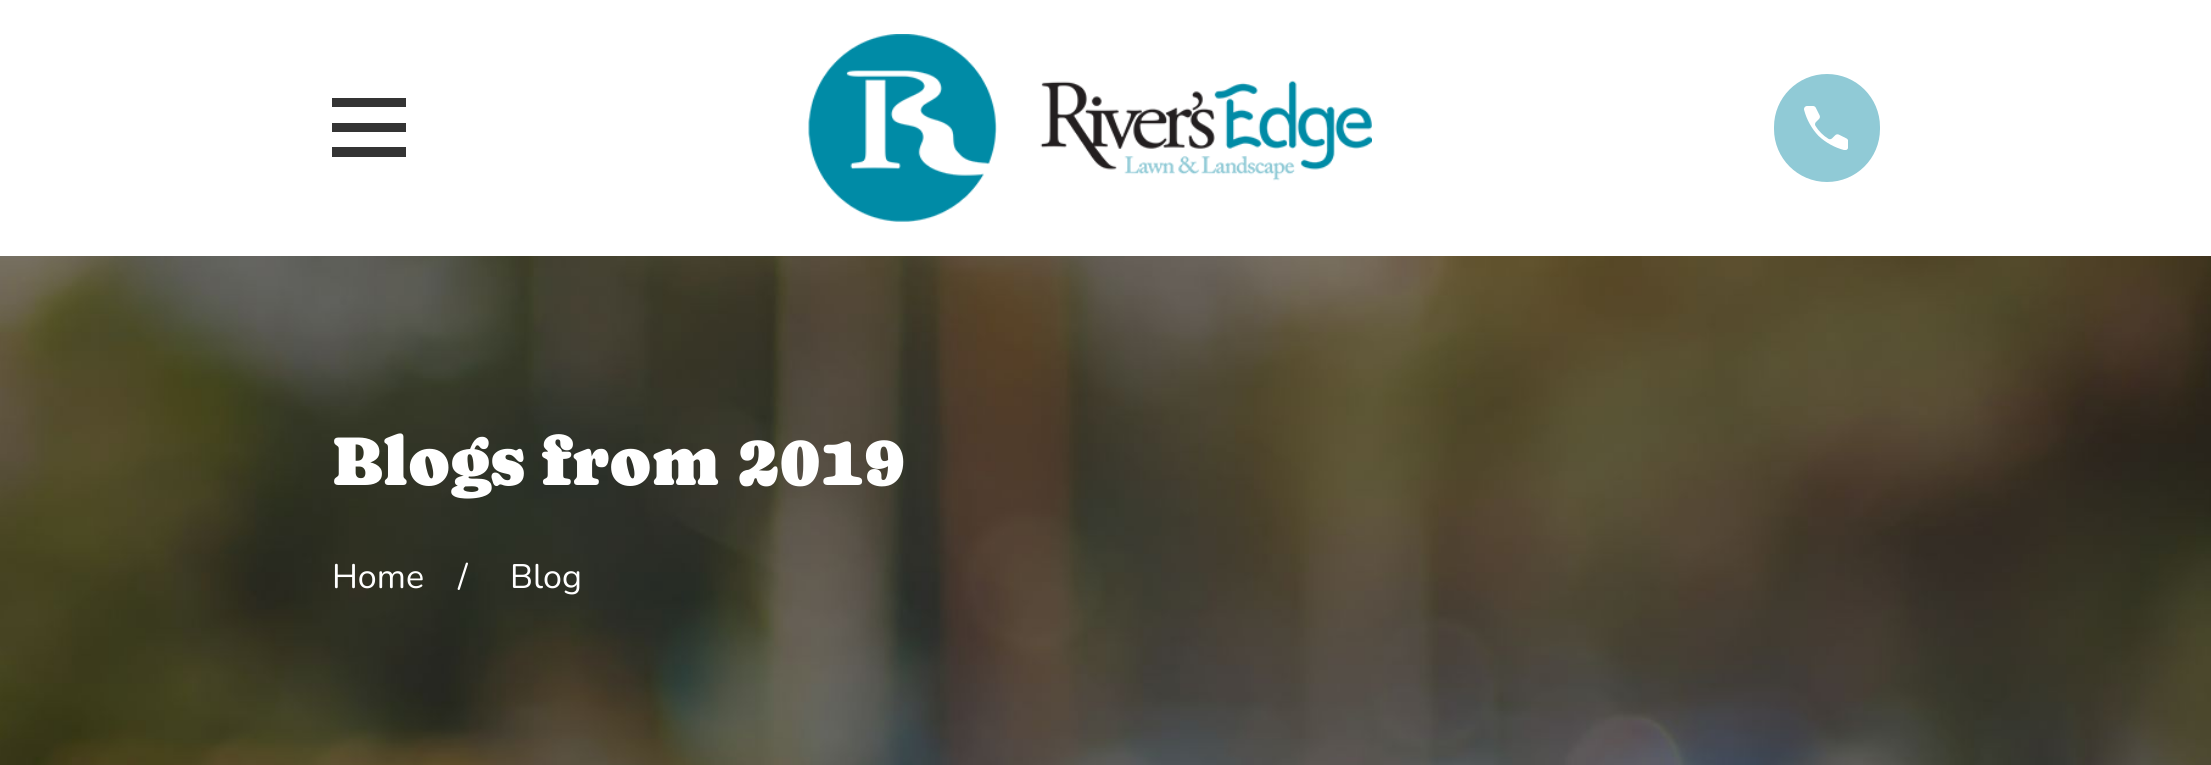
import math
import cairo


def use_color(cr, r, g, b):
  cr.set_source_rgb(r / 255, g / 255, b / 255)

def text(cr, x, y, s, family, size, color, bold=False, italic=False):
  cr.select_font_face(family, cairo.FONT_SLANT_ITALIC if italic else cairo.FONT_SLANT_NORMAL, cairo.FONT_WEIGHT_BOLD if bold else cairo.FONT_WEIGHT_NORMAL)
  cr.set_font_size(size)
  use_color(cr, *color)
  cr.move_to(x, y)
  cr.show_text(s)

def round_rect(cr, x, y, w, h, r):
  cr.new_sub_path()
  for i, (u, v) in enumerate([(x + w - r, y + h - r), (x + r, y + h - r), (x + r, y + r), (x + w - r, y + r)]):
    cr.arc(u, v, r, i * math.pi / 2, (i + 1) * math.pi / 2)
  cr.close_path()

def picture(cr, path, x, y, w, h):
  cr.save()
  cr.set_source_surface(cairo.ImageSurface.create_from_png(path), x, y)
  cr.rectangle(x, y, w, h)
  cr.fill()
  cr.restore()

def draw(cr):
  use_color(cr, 255, 255, 255)
  cr.paint()
  cr.save()
  cr.rectangle(332, 90, 74, 76)
  cr.clip()
  use_color(cr, 52, 52, 52)
  cr.new_path()
  cr.move_to(332, 98)
  cr.line_to(332, 107)
  cr.line_to(407, 107)
  cr.line_to(407, 98)
  cr.close_path()
  cr.move_to(332, 123)
  cr.line_to(332, 132)
  cr.line_to(407, 132)
  cr.line_to(407, 123)
  cr.close_path()
  cr.move_to(332, 147)
  cr.line_to(332, 157)
  cr.line_to(407, 157)
  cr.line_to(407, 147)
  cr.close_path()
  cr.fill()
  cr.restore()
  picture(cr, "img_01.png", 808, 34, 564, 188)
  use_color(cr, 144, 202, 214)
  round_rect(cr, 1774, 74, 106, 108, 53)
  cr.fill()
  picture(cr, "img_02.png", 1804, 106, 44, 44)
  picture(cr, "img_03.png", 0, 256, 2211, 509)
  text(cr, 332, 485, "Blogs from 2019", "Caprasimo", 70.25, (255, 255, 255))
  text(cr, 332, 588, "Home", "Nunito", 34, (255, 255, 255))
  text(cr, 458, 588, "/", "Nunito", 34, (255, 255, 255))
  text(cr, 510, 588, "Blog", "Nunito", 34, (255, 255, 255))


surface = cairo.ImageSurface(cairo.FORMAT_RGB24, 2211, 765)
cr = cairo.Context(surface)
options = cairo.FontOptions()
options.set_hint_metrics(cairo.HINT_METRICS_OFF)
options.set_hint_style(cairo.HINT_STYLE_NONE)
cr.set_font_options(options)
cr.set_miter_limit(4)
draw(cr)
surface.write_to_png("out.png")
